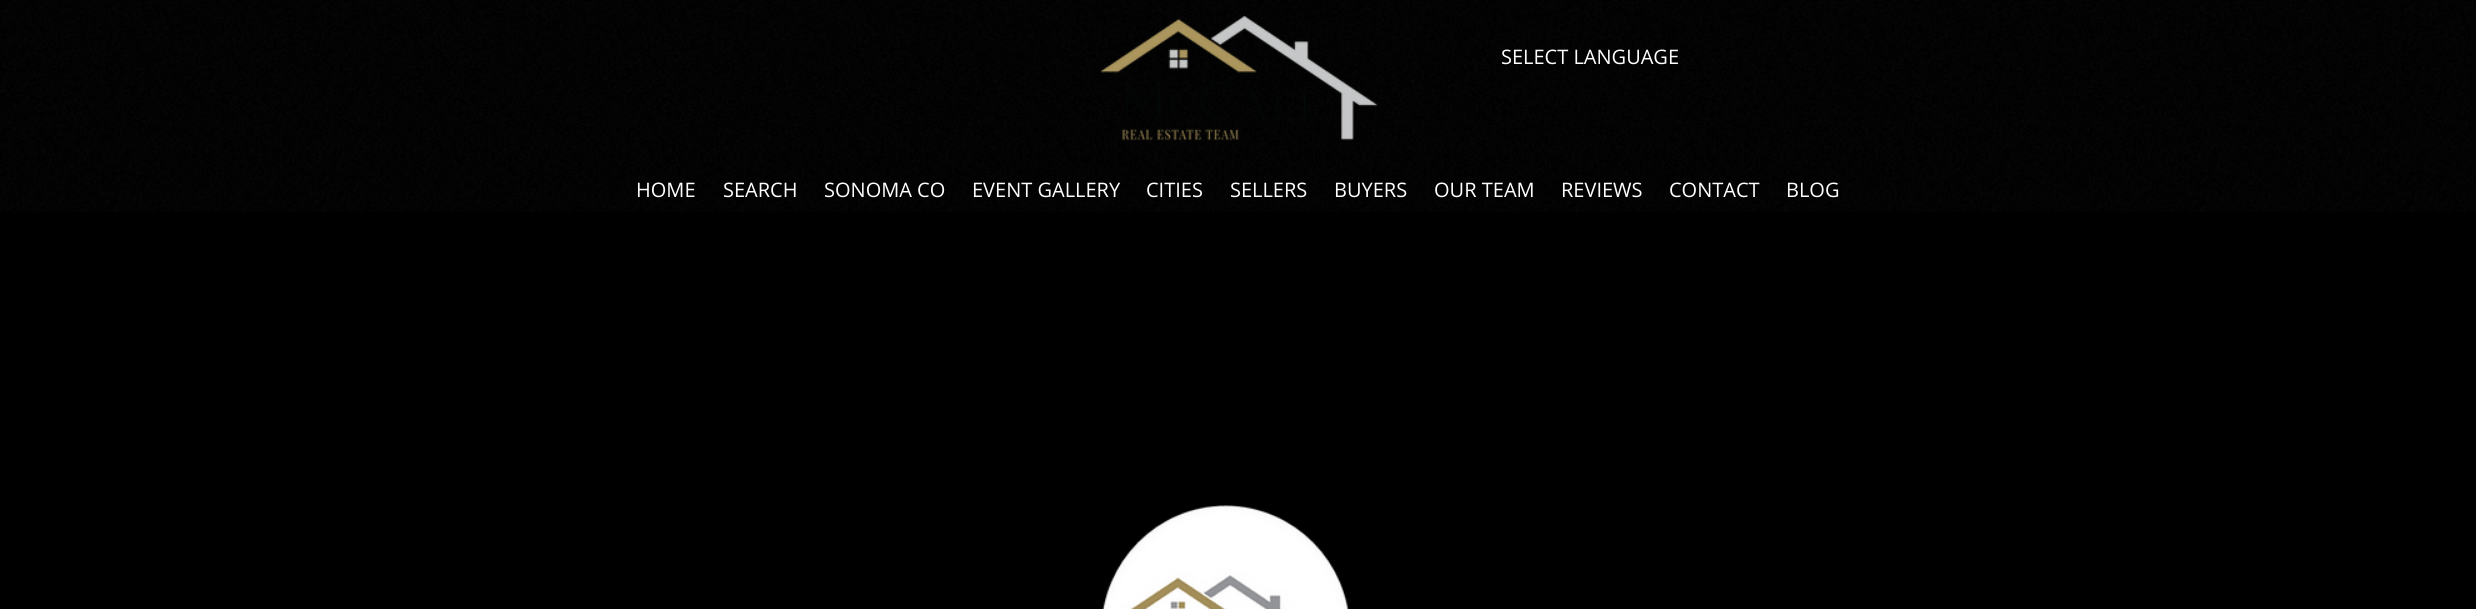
import math
import cairo


def use_color(cr, r, g, b):
  cr.set_source_rgb(r / 255, g / 255, b / 255)

def text(cr, x, y, s, family, size, color, bold=False, italic=False):
  cr.select_font_face(family, cairo.FONT_SLANT_ITALIC if italic else cairo.FONT_SLANT_NORMAL, cairo.FONT_WEIGHT_BOLD if bold else cairo.FONT_WEIGHT_NORMAL)
  cr.set_font_size(size)
  use_color(cr, *color)
  cr.move_to(x, y)
  cr.show_text(s)

def picture(cr, path, x, y, w, h):
  cr.save()
  cr.set_source_surface(cairo.ImageSurface.create_from_png(path), x, y)
  cr.rectangle(x, y, w, h)
  cr.fill()
  cr.restore()

def draw(cr):
  use_color(cr, 0, 0, 0)
  cr.paint()
  picture(cr, "img_01.png", 0, 0, 2476, 212)
  picture(cr, "img_02.png", 1100, 15, 278, 126)
  picture(cr, "img_03.png", 1102, 505, 247, 104)
  text(cr, 1501, 64, "SELECT LANGUAGE", "Open Sans", 20, (255, 255, 255))
  text(cr, 636, 197, "HOME", "Open Sans", 20, (255, 255, 255))
  text(cr, 723, 197, "SEARCH", "Open Sans", 20, (255, 255, 255))
  text(cr, 824, 197, "SONOMA CO", "Open Sans", 20, (255, 255, 255))
  text(cr, 972, 197, "EVENT GALLERY", "Open Sans", 20, (255, 255, 255))
  text(cr, 1146, 197, "CITIES", "Open Sans", 20, (255, 255, 255))
  text(cr, 1230, 197, "SELLERS", "Open Sans", 20, (255, 255, 255))
  text(cr, 1334, 197, "BUYERS", "Open Sans", 20, (255, 255, 255))
  text(cr, 1434, 197, "OUR TEAM", "Open Sans", 20, (255, 255, 255))
  text(cr, 1561, 197, "REVIEWS", "Open Sans", 20, (255, 255, 255))
  text(cr, 1669, 197, "CONTACT", "Open Sans", 20, (255, 255, 255))
  text(cr, 1786, 197, "BLOG", "Open Sans", 20, (255, 255, 255))


surface = cairo.ImageSurface(cairo.FORMAT_RGB24, 2476, 609)
cr = cairo.Context(surface)
options = cairo.FontOptions()
options.set_hint_metrics(cairo.HINT_METRICS_OFF)
options.set_hint_style(cairo.HINT_STYLE_NONE)
cr.set_font_options(options)
cr.set_miter_limit(4)
draw(cr)
surface.write_to_png("out.png")
